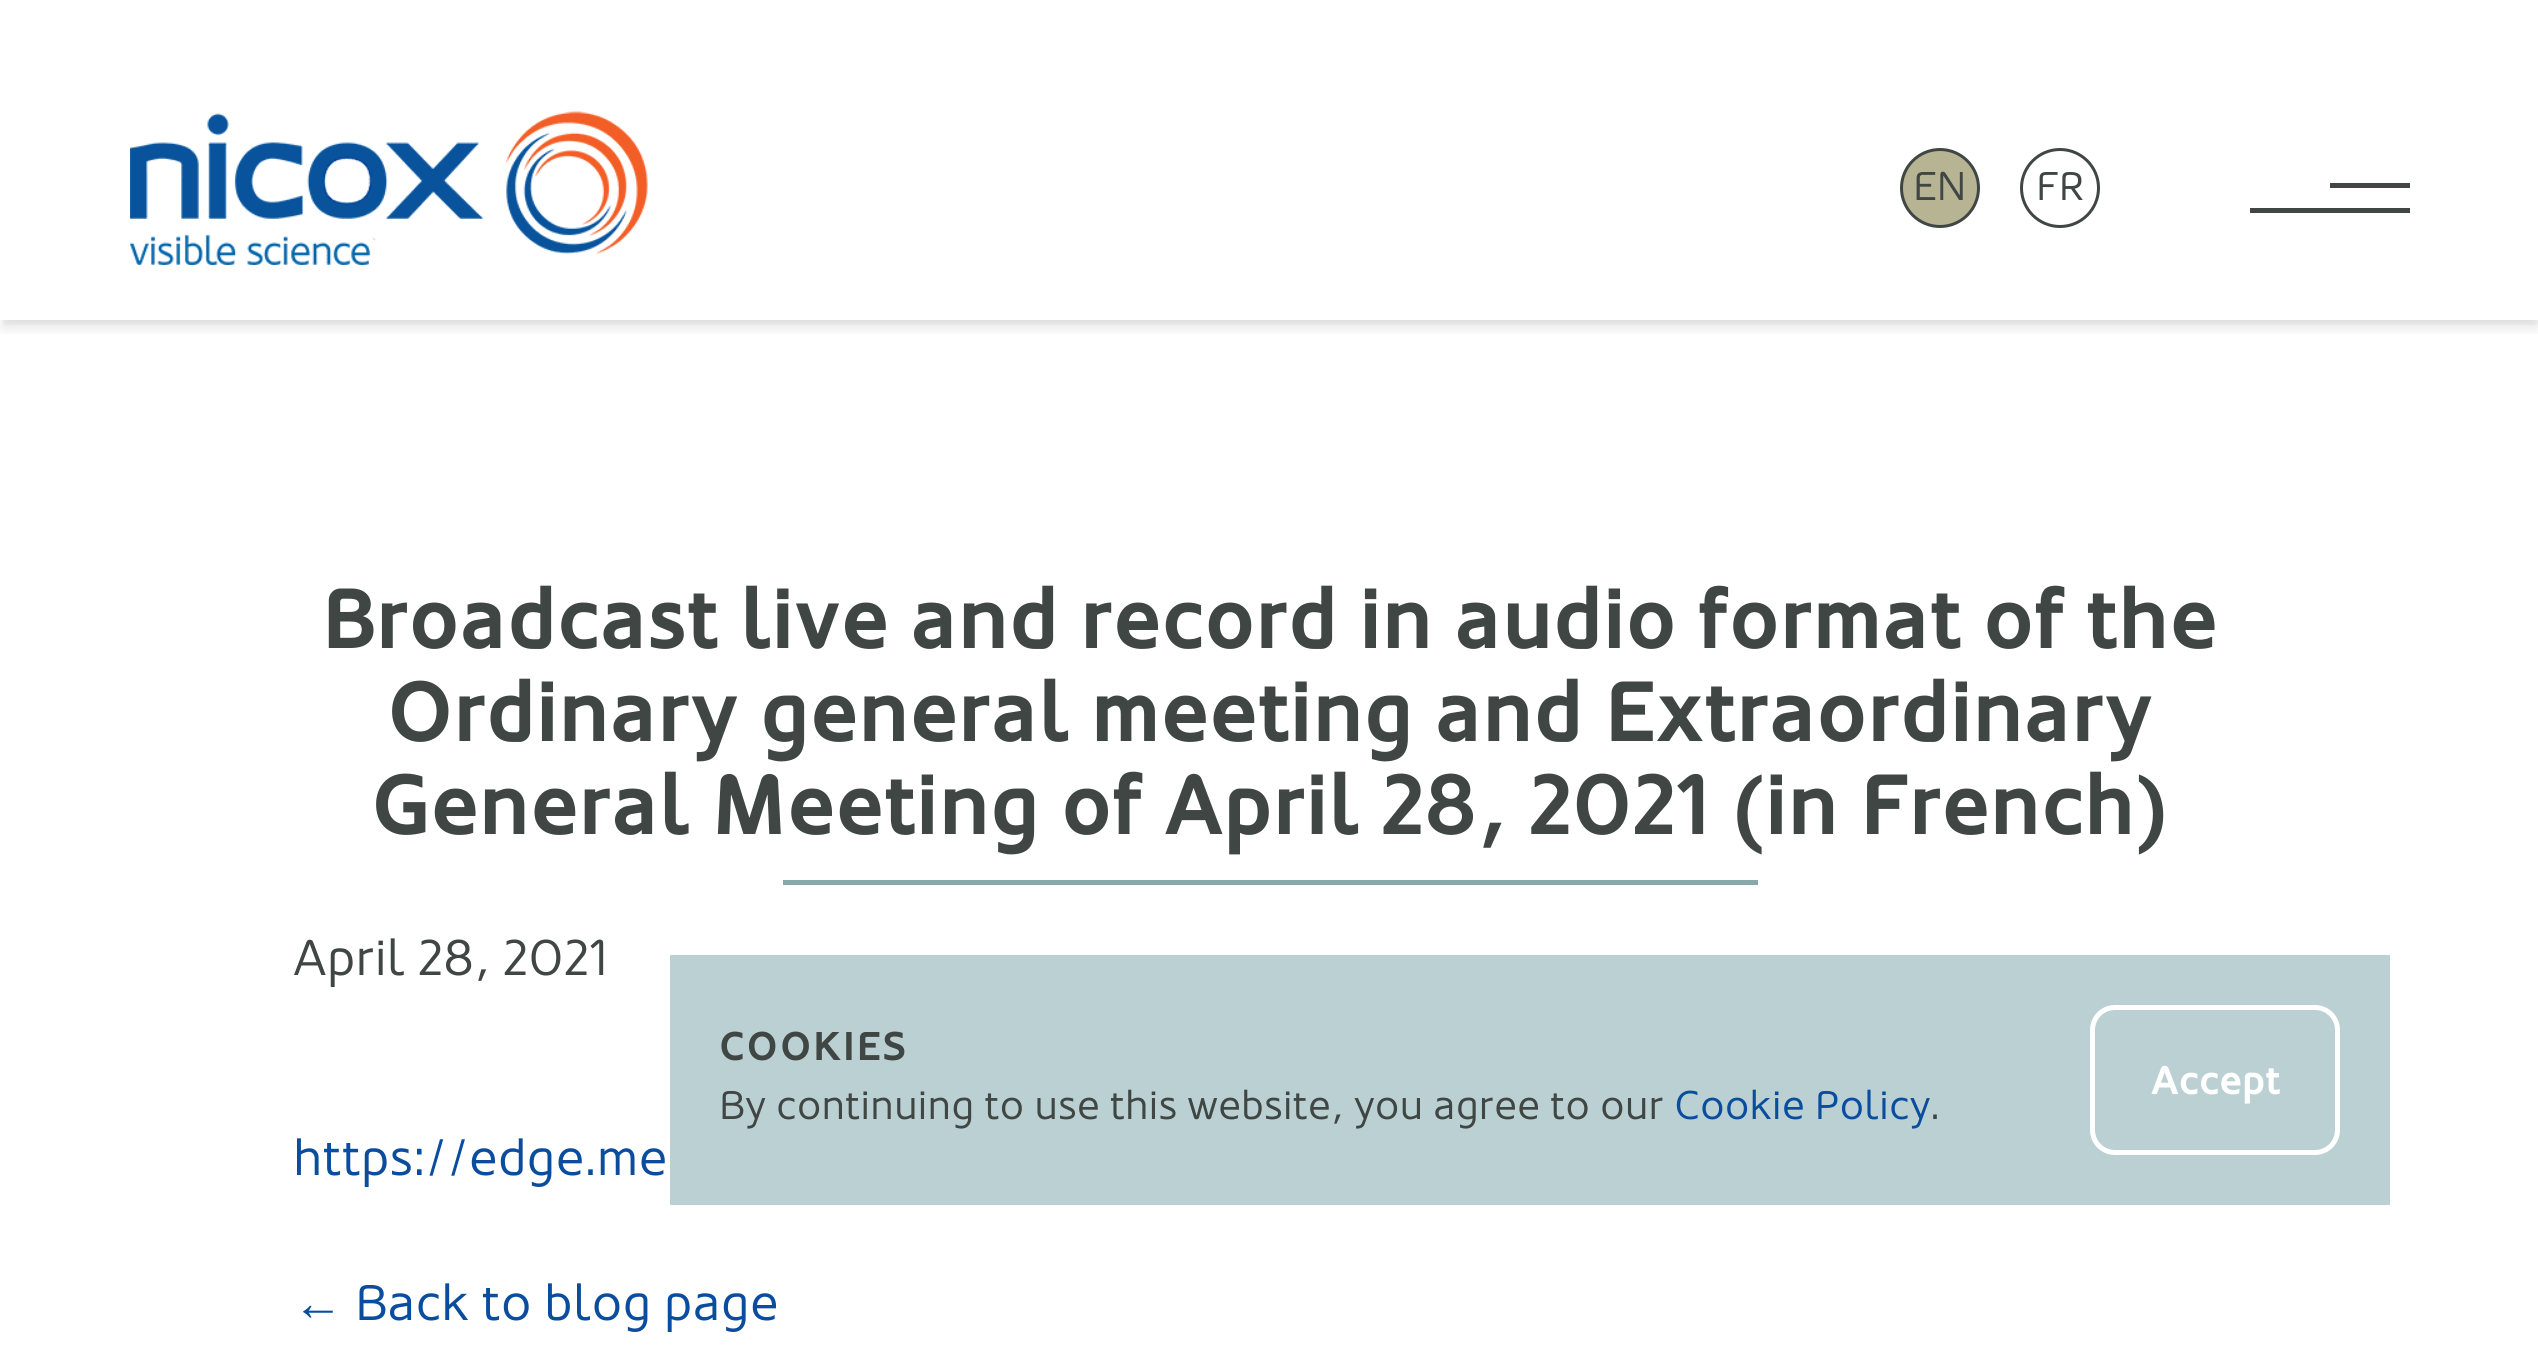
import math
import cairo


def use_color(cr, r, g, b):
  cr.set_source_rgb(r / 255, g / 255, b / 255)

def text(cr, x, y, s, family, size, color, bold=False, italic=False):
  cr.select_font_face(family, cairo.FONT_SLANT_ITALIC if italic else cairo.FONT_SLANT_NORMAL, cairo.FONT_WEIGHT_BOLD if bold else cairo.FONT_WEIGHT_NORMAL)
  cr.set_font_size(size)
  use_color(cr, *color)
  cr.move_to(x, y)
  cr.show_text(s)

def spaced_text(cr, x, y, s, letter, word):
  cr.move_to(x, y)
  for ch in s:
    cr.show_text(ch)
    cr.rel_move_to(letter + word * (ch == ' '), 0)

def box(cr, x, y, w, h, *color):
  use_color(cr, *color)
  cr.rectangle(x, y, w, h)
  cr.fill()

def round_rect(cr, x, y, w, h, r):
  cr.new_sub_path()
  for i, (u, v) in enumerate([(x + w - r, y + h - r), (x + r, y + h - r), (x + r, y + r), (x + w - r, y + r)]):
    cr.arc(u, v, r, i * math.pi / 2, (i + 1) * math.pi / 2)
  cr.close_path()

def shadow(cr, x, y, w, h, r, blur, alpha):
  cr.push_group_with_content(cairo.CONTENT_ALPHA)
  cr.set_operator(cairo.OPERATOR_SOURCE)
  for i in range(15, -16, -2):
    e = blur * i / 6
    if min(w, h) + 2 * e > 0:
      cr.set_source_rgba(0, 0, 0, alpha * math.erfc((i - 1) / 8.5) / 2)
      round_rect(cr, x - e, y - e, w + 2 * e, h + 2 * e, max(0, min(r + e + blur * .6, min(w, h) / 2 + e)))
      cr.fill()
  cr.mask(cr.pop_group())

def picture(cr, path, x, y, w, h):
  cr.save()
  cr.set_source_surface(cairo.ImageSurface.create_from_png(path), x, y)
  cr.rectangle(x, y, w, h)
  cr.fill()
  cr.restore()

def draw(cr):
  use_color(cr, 255, 255, 255)
  cr.paint()
  cr.save()
  cr.rectangle(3, 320, 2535, 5)
  cr.clip()
  use_color(cr, 0, 0, 0)
  shadow(cr, 3, 8, 2535, 315, 0, 5, 0.06)
  cr.restore()
  cr.save()
  cr.rectangle(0, 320, 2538, 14)
  cr.clip()
  use_color(cr, 0, 0, 0)
  shadow(cr, 3, 13, 2535, 315, 0, 7.5, 0.1)
  cr.restore()
  picture(cr, "img_01.png", 130, 111, 518, 154)
  use_color(cr, 183, 180, 148)
  cr.arc(1940, 188, 38.5, 0, 2 * math.pi)
  cr.fill_preserve()
  use_color(cr, 63, 70, 67)
  cr.set_line_width(3)
  cr.stroke()
  cr.arc(2060, 188, 38.5, 0, 2 * math.pi)
  cr.stroke()
  box(cr, 2250, 208, 160, 5, 63, 70, 67)
  box(cr, 2330, 183, 80, 5, 63, 70, 67)
  box(cr, 783, 880, 975, 5, 136, 169, 170)
  box(cr, 670, 955, 1720, 250, 186, 208, 210)
  round_rect(cr, 2092.5, 1007.5, 245, 145, 22.5)
  use_color(cr, 255, 255, 255)
  cr.set_line_width(5)
  cr.stroke()
  text(cr, 1913, 200, "EN", "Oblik", 40, (63, 70, 67))
  text(cr, 2036, 200, "FR", "Oblik", 40, (63, 70, 67))
  text(cr, 322, 648, "Broadcast live and record in audio format of the", "Oblik", 85, (63, 70, 67), bold=True)
  text(cr, 387, 741, "Ordinary general meeting and Extraordinary", "Oblik", 85, (63, 70, 67), bold=True)
  text(cr, 371, 834, "General Meeting of April 28, 2021 (in French)", "Oblik", 85, (63, 70, 67), bold=True)
  text(cr, 293, 975, "April 28, 2021", "Oblik", 50, (63, 70, 67))
  text(cr, 293, 1175, "https://edge.me", "Oblik", 50, (10, 77, 158))
  text(cr, 293, 1320, "←", "Liberation Sans", 50, (10, 77, 158))
  text(cr, 355, 1320, "Back to blog page", "Oblik", 50, (10, 77, 158))
  cr.select_font_face("Oblik", cairo.FONT_SLANT_NORMAL, cairo.FONT_WEIGHT_BOLD)
  cr.set_font_size(40)
  use_color(cr, 63, 70, 67)
  spaced_text(cr, 719, 1060, "COOKIES", 2, 0)
  text(cr, 719, 1119, "By continuing to use this website, you agree to our", "Oblik", 40, (63, 70, 67))
  text(cr, 1674, 1119, "Cookie Policy", "Oblik", 40, (10, 77, 158))
  text(cr, 1930, 1119, ".", "Oblik", 40, (63, 70, 67))
  text(cr, 2151, 1094, "Accept", "Oblik", 40, (255, 255, 255), bold=True)


surface = cairo.ImageSurface(cairo.FORMAT_RGB24, 2538, 1355)
cr = cairo.Context(surface)
options = cairo.FontOptions()
options.set_hint_metrics(cairo.HINT_METRICS_OFF)
options.set_hint_style(cairo.HINT_STYLE_NONE)
cr.set_font_options(options)
cr.set_miter_limit(4)
draw(cr)
surface.write_to_png("out.png")
